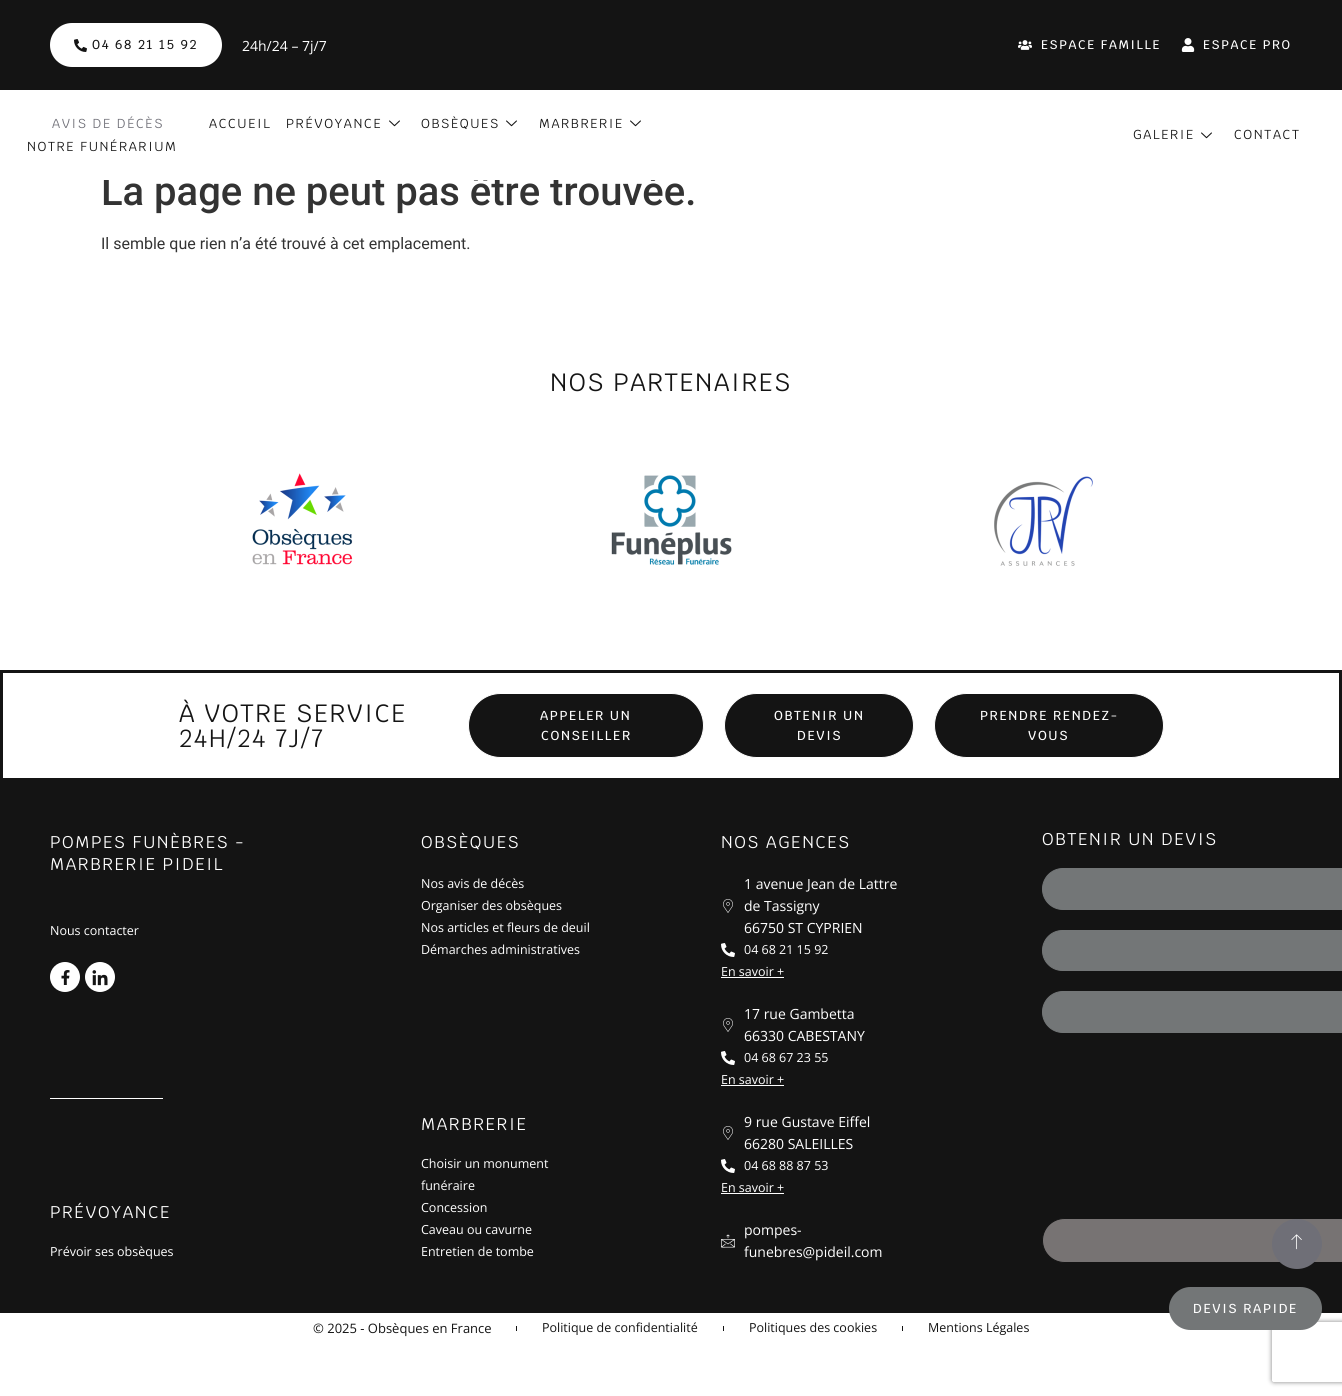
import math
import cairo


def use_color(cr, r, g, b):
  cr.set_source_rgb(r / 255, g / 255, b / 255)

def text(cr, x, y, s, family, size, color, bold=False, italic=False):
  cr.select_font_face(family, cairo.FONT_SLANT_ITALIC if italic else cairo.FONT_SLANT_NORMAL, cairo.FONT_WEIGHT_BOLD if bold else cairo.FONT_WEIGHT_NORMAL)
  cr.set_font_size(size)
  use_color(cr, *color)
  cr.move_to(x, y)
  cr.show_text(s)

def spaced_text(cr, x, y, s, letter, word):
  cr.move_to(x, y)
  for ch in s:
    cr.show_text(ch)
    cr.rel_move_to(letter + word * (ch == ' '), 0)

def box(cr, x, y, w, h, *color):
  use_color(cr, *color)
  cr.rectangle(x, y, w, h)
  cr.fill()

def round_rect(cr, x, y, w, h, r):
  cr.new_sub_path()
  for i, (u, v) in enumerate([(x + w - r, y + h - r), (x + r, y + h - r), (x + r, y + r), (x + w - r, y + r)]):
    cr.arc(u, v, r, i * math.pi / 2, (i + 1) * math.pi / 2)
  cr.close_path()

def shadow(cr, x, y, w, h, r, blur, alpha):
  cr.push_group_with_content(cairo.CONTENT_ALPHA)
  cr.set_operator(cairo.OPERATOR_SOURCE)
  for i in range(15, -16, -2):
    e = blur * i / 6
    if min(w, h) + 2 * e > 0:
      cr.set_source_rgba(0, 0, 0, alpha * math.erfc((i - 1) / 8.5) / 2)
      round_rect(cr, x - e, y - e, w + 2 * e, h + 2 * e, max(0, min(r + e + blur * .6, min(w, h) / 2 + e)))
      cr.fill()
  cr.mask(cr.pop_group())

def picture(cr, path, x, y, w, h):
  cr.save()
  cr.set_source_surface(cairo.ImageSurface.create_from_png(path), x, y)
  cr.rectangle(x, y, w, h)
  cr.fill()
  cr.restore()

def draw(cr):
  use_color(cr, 255, 255, 255)
  cr.paint()
  box(cr, 0, 0, 1342, 90, 20, 20, 20)
  use_color(cr, 255, 255, 255)
  round_rect(cr, 50, 23, 172, 44, 22)
  cr.fill()
  picture(cr, "img_01.png", 74, 39, 13, 13)
  picture(cr, "img_02.png", 1018, 40, 14, 10)
  picture(cr, "img_03.png", 1181, 38, 14, 14)
  picture(cr, "img_04.png", 389, 120, 11, 7)
  picture(cr, "img_04.png", 506, 120, 11, 7)
  picture(cr, "img_04.png", 630, 120, 11, 7)
  picture(cr, "img_04.png", 1201, 132, 11, 7)
  picture(cr, "img_05.png", 252, 473, 101, 92)
  picture(cr, "img_06.png", 611, 475, 121, 90)
  picture(cr, "img_07.png", 994, 476, 99, 90)
  cr.rectangle(1.5, 671.5, 1339, 108)
  use_color(cr, 20, 20, 20)
  cr.set_line_width(3)
  cr.stroke()
  round_rect(cr, 468.5, 693.5, 235, 64, 32)
  cr.fill_preserve()
  use_color(cr, 255, 255, 255)
  cr.set_line_width(1)
  cr.stroke()
  use_color(cr, 20, 20, 20)
  round_rect(cr, 724.5, 693.5, 189, 64, 32)
  cr.fill_preserve()
  use_color(cr, 255, 255, 255)
  cr.stroke()
  use_color(cr, 20, 20, 20)
  round_rect(cr, 934.5, 693.5, 229, 64, 32)
  cr.fill_preserve()
  use_color(cr, 255, 255, 255)
  cr.stroke()
  box(cr, 0, 781, 1342, 532, 20, 20, 20)
  use_color(cr, 255, 255, 255)
  cr.arc(65, 977, 15, 0, 2 * math.pi)
  cr.fill()
  picture(cr, "img_08.png", 61, 970, 9, 15)
  cr.arc(100, 977, 15, 0, 2 * math.pi)
  cr.fill()
  picture(cr, "img_09.png", 92, 970, 16, 16)
  box(cr, 50, 1098, 113, 1, 255, 255, 255)
  picture(cr, "img_10.png", 723, 899, 10, 14)
  picture(cr, "img_11.png", 721, 943, 14, 14)
  box(cr, 721, 977, 63, 1, 255, 255, 255)
  picture(cr, "img_10.png", 723, 1018, 10, 14)
  picture(cr, "img_11.png", 721, 1051, 14, 14)
  box(cr, 721, 1085, 63, 1, 255, 255, 255)
  picture(cr, "img_10.png", 723, 1126, 10, 14)
  picture(cr, "img_11.png", 721, 1159, 14, 14)
  box(cr, 721, 1193, 63, 1, 255, 255, 255)
  picture(cr, "img_12.png", 721, 1234, 14, 14)
  use_color(cr, 115, 118, 119)
  round_rect(cr, 1042.5, 868.5, 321, 41, 20.5)
  cr.fill_preserve()
  cr.stroke()
  round_rect(cr, 1042.5, 930.5, 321, 40, 20)
  cr.fill_preserve()
  cr.stroke()
  round_rect(cr, 1042.5, 991.5, 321, 41, 20.5)
  cr.fill_preserve()
  cr.stroke()
  use_color(cr, 119, 115, 115)
  round_rect(cr, 1042.5, 1218.5, 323, 44, 22)
  cr.fill_preserve()
  use_color(cr, 20, 20, 20)
  cr.stroke()
  use_color(cr, 111, 111, 119)
  cr.arc(1297, 1244, 25, 0, 2 * math.pi)
  cr.fill()
  picture(cr, "img_13.png", 1291, 1234, 11, 16)
  cr.save()
  cr.set_fill_rule(cairo.FILL_RULE_EVEN_ODD)
  cr.new_path()
  cr.move_to(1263, 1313)
  cr.line_to(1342, 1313)
  cr.line_to(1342, 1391)
  cr.line_to(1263, 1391)
  cr.close_path()
  cr.move_to(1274, 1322)
  cr.line_to(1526, 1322)
  cr.curve_to(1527, 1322, 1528, 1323, 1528, 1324)
  cr.line_to(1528, 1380)
  cr.curve_to(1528, 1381, 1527, 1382, 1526, 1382)
  cr.line_to(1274, 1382)
  cr.curve_to(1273, 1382, 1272, 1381, 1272, 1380)
  cr.line_to(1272, 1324)
  cr.curve_to(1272, 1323, 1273, 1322, 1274, 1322)
  cr.close_path()
  cr.clip()
  use_color(cr, 128, 128, 128)
  shadow(cr, 1272, 1322, 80, 60, 2, 2.5, 1)
  cr.restore()
  use_color(cr, 115, 118, 119)
  round_rect(cr, 1169, 1287, 153, 43, 21.5)
  cr.fill()
  box(cr, 516, 1326, 1, 5, 20, 20, 20)
  box(cr, 723, 1326, 1, 5, 20, 20, 20)
  box(cr, 902, 1326, 1, 5, 20, 20, 20)
  cr.select_font_face("Krub Medium")
  cr.set_font_size(13)
  spaced_text(cr, 92, 49, "04 68 21 15 92", 1.6, 0)
  text(cr, 242, 51, "24h/24 – 7j/7", "Open Sans", 14, (255, 255, 255))
  cr.select_font_face("Krub Medium")
  cr.set_font_size(12.5)
  spaced_text(cr, 1041, 49, "ESPACE FAMILLE", 1.6, 0)
  spaced_text(cr, 1203, 49, "ESPACE PRO", 1.6, 0)
  cr.select_font_face("Krub")
  cr.set_font_size(13)
  use_color(cr, 111, 111, 119)
  spaced_text(cr, 52, 128, "AVIS DE DÉCÈS", 1.6, 0)
  use_color(cr, 20, 20, 20)
  spaced_text(cr, 209, 128, "ACCUEIL", 1.6, 0)
  spaced_text(cr, 286, 128, "PRÉVOYANCE", 1.6, 0)
  spaced_text(cr, 421, 128, "OBSÈQUES", 1.6, 0)
  spaced_text(cr, 539, 128, "MARBRERIE", 1.6, 0)
  spaced_text(cr, 27, 151, "NOTRE FUNÉRARIUM", 1.6, 0)
  spaced_text(cr, 1133, 139, "GALERIE", 1.6, 0)
  spaced_text(cr, 1234, 139, "CONTACT", 1.6, 0)
  text(cr, 101, 205, "La page ne peut pas être trouvée.", "Roboto Medium", 40, (51, 51, 51))
  box(cr, 103, 175, 557, 5, 255, 255, 255)
  text(cr, 101, 249, "Il semble que rien n’a été trouvé à cet emplacement.", "Roboto", 16, (51, 51, 51))
  cr.select_font_face("Krub")
  cr.set_font_size(25)
  use_color(cr, 20, 20, 20)
  spaced_text(cr, 550, 391, "NOS PARTENAIRES", 1.6, 0)
  spaced_text(cr, 179, 722, "À VOTRE SERVICE", 1.6, 0)
  spaced_text(cr, 179, 747, "24H/24 7J/7", 1.6, 0)
  cr.select_font_face("Krub Medium")
  cr.set_font_size(13)
  use_color(cr, 255, 255, 255)
  spaced_text(cr, 540, 720, "APPELER UN", 1.6, 0)
  spaced_text(cr, 541, 740, "CONSEILLER", 1.6, 0)
  spaced_text(cr, 774, 720, "OBTENIR UN", 1.6, 0)
  spaced_text(cr, 797, 740, "DEVIS", 1.6, 0)
  spaced_text(cr, 980, 720, "PRENDRE RENDEZ-", 1.6, 0)
  spaced_text(cr, 1028, 740, "VOUS", 1.6, 0)
  cr.select_font_face("Krub")
  cr.set_font_size(17)
  spaced_text(cr, 50, 848, "POMPES FUNÈBRES -", 1.6, 0)
  spaced_text(cr, 50, 870, "MARBRERIE PIDEIL", 1.6, 0)
  text(cr, 50, 935, "Nous contacter", "Open Sans", 12.5, (255, 255, 255))
  cr.select_font_face("Krub")
  cr.set_font_size(17)
  spaced_text(cr, 50, 1218, "PRÉVOYANCE", 1.6, 0)
  text(cr, 50, 1256, "Prévoir ses obsèques", "Open Sans", 12.5, (255, 255, 255))
  cr.select_font_face("Krub")
  cr.set_font_size(17)
  spaced_text(cr, 421, 848, "OBSÈQUES", 1.6, 0)
  text(cr, 421, 888, "Nos avis de décès", "Open Sans", 12.5, (255, 255, 255))
  text(cr, 421, 910, "Organiser des obsèques", "Open Sans", 12.5, (255, 255, 255))
  text(cr, 421, 932, "Nos articles et fleurs de deuil", "Open Sans", 12.5, (255, 255, 255))
  text(cr, 421, 954, "Démarches administratives", "Open Sans", 12.5, (255, 255, 255))
  cr.select_font_face("Krub")
  cr.set_font_size(17)
  spaced_text(cr, 421, 1130, "MARBRERIE", 1.6, 0)
  text(cr, 421, 1168, "Choisir un monument", "Open Sans", 12.5, (255, 255, 255))
  text(cr, 421, 1190, "funéraire", "Open Sans", 12.5, (255, 255, 255))
  text(cr, 421, 1212, "Concession", "Open Sans", 12.5, (255, 255, 255))
  text(cr, 421, 1234, "Caveau ou cavurne", "Open Sans", 12.5, (255, 255, 255))
  text(cr, 421, 1256, "Entretien de tombe", "Open Sans", 12.5, (255, 255, 255))
  cr.select_font_face("Krub")
  cr.set_font_size(17)
  spaced_text(cr, 721, 848, "NOS AGENCES", 1.6, 0)
  text(cr, 744, 889, "1 avenue Jean de Lattre", "Open Sans", 14, (255, 255, 255))
  text(cr, 744, 911, "de Tassigny", "Open Sans", 14, (255, 255, 255))
  text(cr, 744, 933, "66750 ST CYPRIEN", "Open Sans", 14, (255, 255, 255))
  text(cr, 744, 954, "04 68 21 15 92", "Open Sans", 12.5, (255, 255, 255))
  text(cr, 721, 976, "En savoir +", "Open Sans", 12.5, (255, 255, 255))
  text(cr, 744, 1019, "17 rue Gambetta", "Open Sans", 14, (255, 255, 255))
  text(cr, 744, 1041, "66330 CABESTANY", "Open Sans", 14, (255, 255, 255))
  text(cr, 744, 1062, "04 68 67 23 55", "Open Sans", 12.5, (255, 255, 255))
  text(cr, 721, 1084, "En savoir +", "Open Sans", 12.5, (255, 255, 255))
  text(cr, 744, 1127, "9 rue Gustave Eiffel", "Open Sans", 14, (255, 255, 255))
  text(cr, 744, 1149, "66280 SALEILLES", "Open Sans", 14, (255, 255, 255))
  text(cr, 744, 1170, "04 68 88 87 53", "Open Sans", 12.5, (255, 255, 255))
  text(cr, 721, 1192, "En savoir +", "Open Sans", 12.5, (255, 255, 255))
  text(cr, 744, 1235, "pompes-", "Open Sans", 14, (255, 255, 255))
  text(cr, 744, 1257, "funebres@pideil.com", "Open Sans", 14, (255, 255, 255))
  cr.select_font_face("Krub")
  cr.set_font_size(17)
  spaced_text(cr, 1042, 845, "OBTENIR UN DEVIS", 1.6, 0)
  cr.select_font_face("Krub Medium")
  cr.set_font_size(13)
  spaced_text(cr, 1193, 1313, "DEVIS RAPIDE", 1.6, 0)
  text(cr, 313, 1333, "© 2025 - Obsèques en France", "Open Sans", 13, (20, 20, 20))
  text(cr, 542, 1332, "Politique de confidentialité", "Open Sans", 12.5, (20, 20, 20))
  text(cr, 749, 1332, "Politiques des cookies", "Open Sans", 12.5, (20, 20, 20))
  text(cr, 928, 1332, "Mentions Légales", "Open Sans", 12.5, (20, 20, 20))


surface = cairo.ImageSurface(cairo.FORMAT_RGB24, 1342, 1396)
cr = cairo.Context(surface)
options = cairo.FontOptions()
options.set_hint_metrics(cairo.HINT_METRICS_OFF)
options.set_hint_style(cairo.HINT_STYLE_NONE)
cr.set_font_options(options)
cr.set_miter_limit(4)
draw(cr)
surface.write_to_png("out.png")
